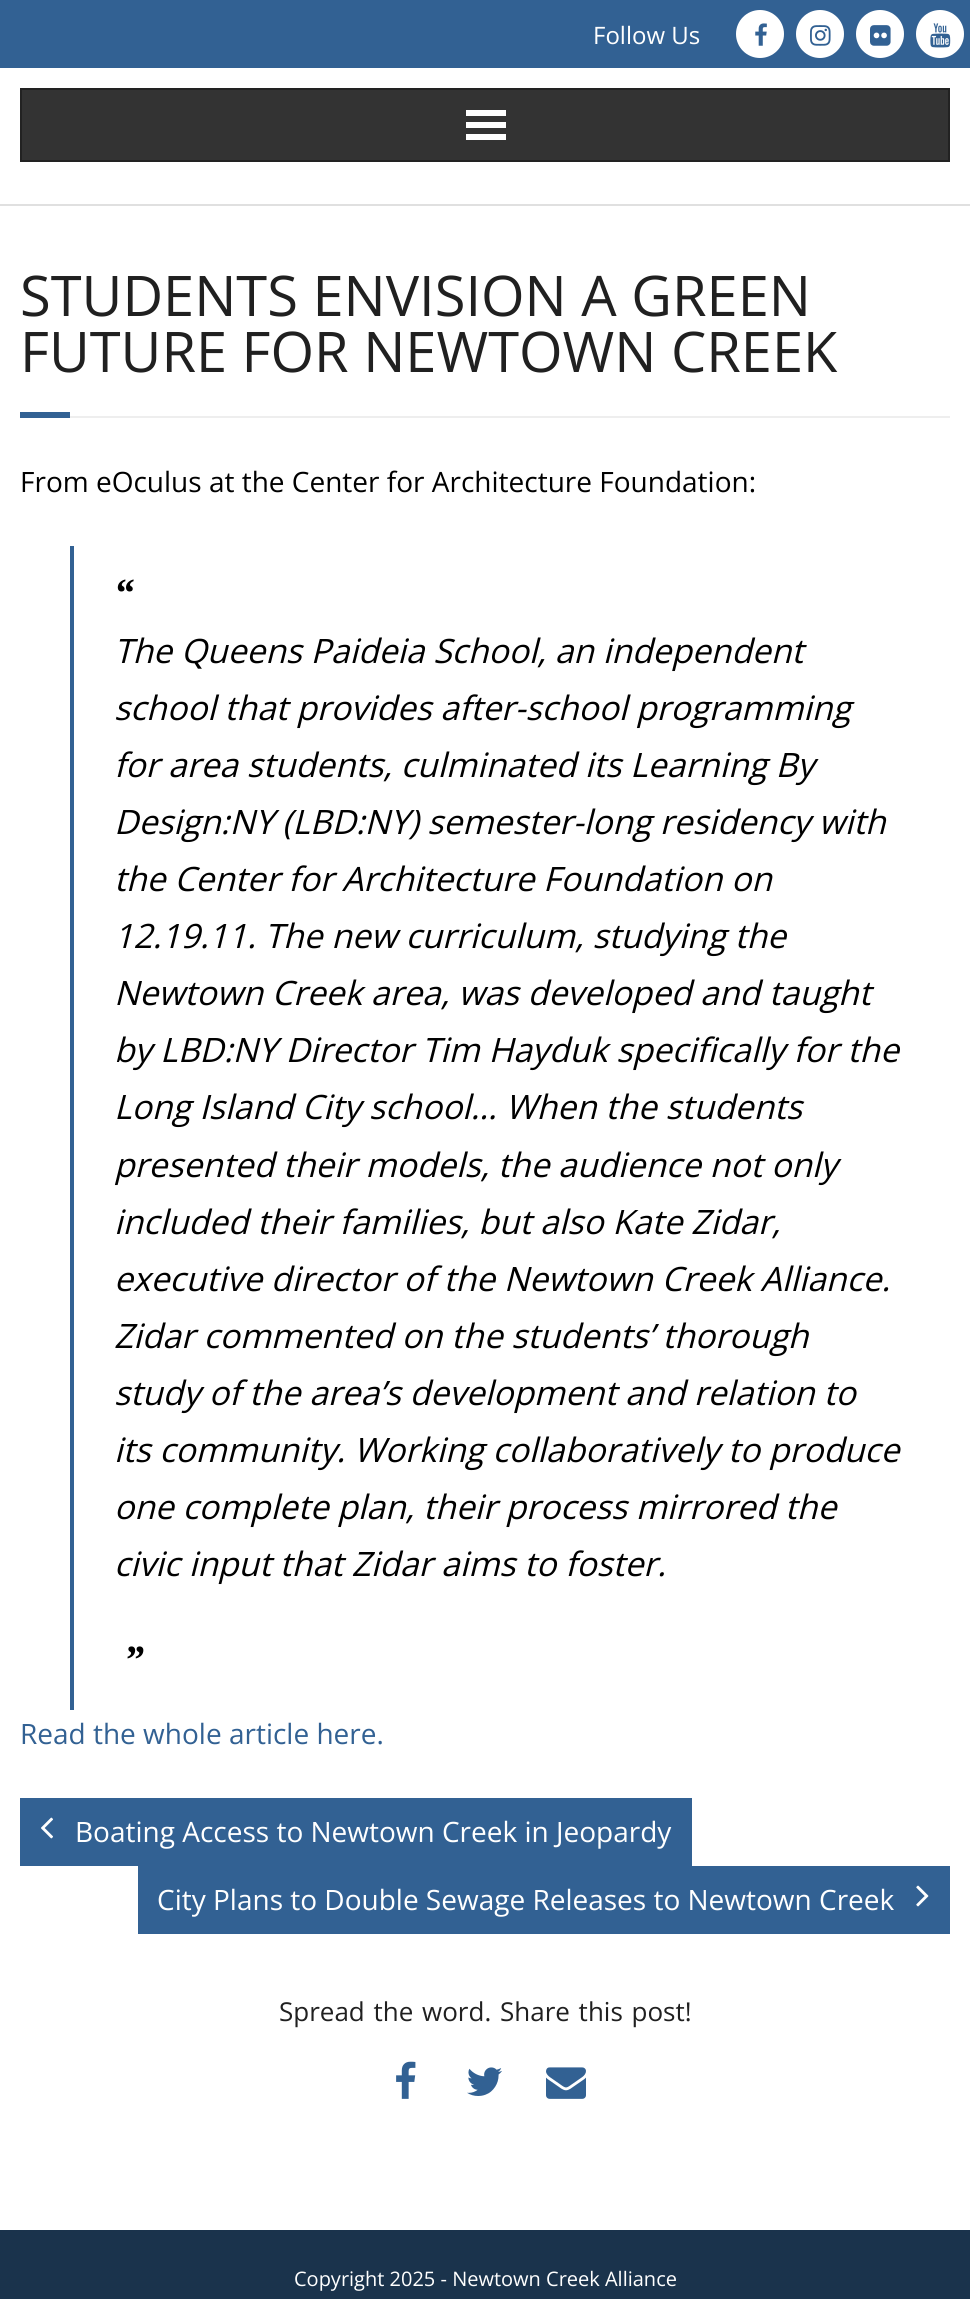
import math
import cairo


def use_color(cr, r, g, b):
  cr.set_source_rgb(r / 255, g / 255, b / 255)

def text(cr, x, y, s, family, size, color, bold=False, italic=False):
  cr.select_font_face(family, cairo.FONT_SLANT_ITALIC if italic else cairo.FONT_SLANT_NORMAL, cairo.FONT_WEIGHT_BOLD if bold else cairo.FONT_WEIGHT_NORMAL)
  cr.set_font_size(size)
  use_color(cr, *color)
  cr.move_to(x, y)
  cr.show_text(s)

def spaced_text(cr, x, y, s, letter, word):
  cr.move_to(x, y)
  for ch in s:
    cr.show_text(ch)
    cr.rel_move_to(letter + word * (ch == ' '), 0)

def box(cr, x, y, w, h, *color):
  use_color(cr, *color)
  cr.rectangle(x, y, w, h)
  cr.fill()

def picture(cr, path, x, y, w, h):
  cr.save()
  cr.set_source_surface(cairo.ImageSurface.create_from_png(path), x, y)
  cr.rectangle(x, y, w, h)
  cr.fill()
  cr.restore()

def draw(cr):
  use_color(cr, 255, 255, 255)
  cr.paint()
  box(cr, 0, 0, 970, 68, 50, 97, 147)
  use_color(cr, 255, 255, 255)
  cr.arc(760, 34, 24, 0, 2 * math.pi)
  cr.fill()
  picture(cr, "img_01.png", 755, 23, 12, 23)
  cr.arc(820, 34, 24, 0, 2 * math.pi)
  cr.fill()
  picture(cr, "img_02.png", 810, 25, 21, 21)
  cr.arc(880, 34, 24, 0, 2 * math.pi)
  cr.fill()
  picture(cr, "img_03.png", 870, 25, 21, 21)
  cr.arc(940, 34, 24, 0, 2 * math.pi)
  cr.fill()
  picture(cr, "img_04.png", 930, 23, 21, 25)
  box(cr, 0, 204, 970, 2, 224, 224, 224)
  use_color(cr, 51, 51, 51)
  cr.rectangle(21, 89, 928, 72)
  cr.fill_preserve()
  use_color(cr, 34, 34, 34)
  cr.stroke()
  box(cr, 466, 110, 40, 6, 255, 255, 255)
  box(cr, 466, 122, 40, 6, 255, 255, 255)
  box(cr, 466, 134, 40, 6, 255, 255, 255)
  box(cr, 20, 412, 50, 6, 50, 97, 147)
  box(cr, 70, 416, 880, 2, 238, 238, 238)
  box(cr, 70, 546, 4, 1164, 50, 97, 147)
  box(cr, 20, 1798, 672, 68, 50, 97, 147)
  picture(cr, "img_05.png", 41, 1817, 12, 22)
  box(cr, 138, 1866, 812, 68, 50, 97, 147)
  picture(cr, "img_06.png", 916, 1885, 13, 22)
  picture(cr, "img_07.png", 396, 2061, 20, 38)
  picture(cr, "img_08.png", 467, 2067, 35, 29)
  picture(cr, "img_09.png", 546, 2067, 40, 32)
  box(cr, 0, 2230, 970, 69, 26, 51, 76)
  text(cr, 593, 44, "Follow Us", "Open Sans", 24, (255, 255, 255))
  text(cr, 20, 316, "STUDENTS ENVISION A GREEN", "Open Sans", 56, (32, 32, 32))
  text(cr, 20, 372, "FUTURE FOR NEWTOWN CREEK", "Open Sans", 56, (32, 32, 32))
  text(cr, 20, 492, "From eOculus at the Center for Architecture Foundation:", "Open Sans", 28, (0, 0, 0))
  text(cr, 114, 606, "“", "Liberation Serif", 40, (0, 0, 0), bold=True, italic=True)
  text(cr, 114, 663, "The Queens Paideia School, an independent", "Open Sans", 33.6, (0, 0, 0), italic=True)
  text(cr, 114, 720, "school that provides after-school programming", "Open Sans", 33.6, (0, 0, 0), italic=True)
  text(cr, 114, 777, "for area students, culminated its Learning By", "Open Sans", 33.6, (0, 0, 0), italic=True)
  text(cr, 114, 834, "Design:NY (LBD:NY) semester-long residency with", "Open Sans", 33.6, (0, 0, 0), italic=True)
  text(cr, 114, 891, "the Center for Architecture Foundation on", "Open Sans", 33.6, (0, 0, 0), italic=True)
  text(cr, 114, 948, "12.19.11. The new curriculum, studying the", "Open Sans", 33.6, (0, 0, 0), italic=True)
  text(cr, 114, 1005, "Newtown Creek area, was developed and taught", "Open Sans", 33.6, (0, 0, 0), italic=True)
  text(cr, 114, 1062, "by LBD:NY Director Tim Hayduk specifically for the", "Open Sans", 33.6, (0, 0, 0), italic=True)
  text(cr, 114, 1119, "Long Island City school… When the students", "Open Sans", 33.6, (0, 0, 0), italic=True)
  text(cr, 114, 1177, "presented their models, the audience not only", "Open Sans", 33.6, (0, 0, 0), italic=True)
  text(cr, 114, 1234, "included their families, but also Kate Zidar,", "Open Sans", 33.6, (0, 0, 0), italic=True)
  text(cr, 114, 1291, "executive director of the Newtown Creek Alliance.", "Open Sans", 33.6, (0, 0, 0), italic=True)
  text(cr, 114, 1348, "Zidar commented on the students’ thorough", "Open Sans", 33.6, (0, 0, 0), italic=True)
  text(cr, 114, 1405, "study of the area’s development and relation to", "Open Sans", 33.6, (0, 0, 0), italic=True)
  text(cr, 114, 1462, "its community. Working collaboratively to produce", "Open Sans", 33.6, (0, 0, 0), italic=True)
  text(cr, 114, 1519, "one complete plan, their process mirrored the", "Open Sans", 33.6, (0, 0, 0), italic=True)
  text(cr, 114, 1576, "civic input that Zidar aims to foster.", "Open Sans", 33.6, (0, 0, 0), italic=True)
  text(cr, 124, 1673, "”", "Liberation Serif", 40, (0, 0, 0), bold=True, italic=True)
  text(cr, 20, 1744, "Read the whole article here.", "Open Sans", 28, (50, 97, 147))
  text(cr, 75, 1842, "Boating Access to Newtown Creek in Jeopardy", "Open Sans", 28, (255, 255, 255))
  text(cr, 157, 1910, "City Plans to Double Sewage Releases to Newtown Creek", "Open Sans", 28, (255, 255, 255))
  cr.set_font_size(26)
  use_color(cr, 32, 32, 32)
  spaced_text(cr, 279, 2021, "Spread the word. Share this post!", 0, 2)
  text(cr, 294, 2286, "Copyright 2025 - Newtown Creek Alliance", "Open Sans", 20, (255, 255, 255))


surface = cairo.ImageSurface(cairo.FORMAT_RGB24, 970, 2299)
cr = cairo.Context(surface)
options = cairo.FontOptions()
options.set_hint_metrics(cairo.HINT_METRICS_OFF)
options.set_hint_style(cairo.HINT_STYLE_NONE)
cr.set_font_options(options)
cr.set_miter_limit(4)
draw(cr)
surface.write_to_png("out.png")
